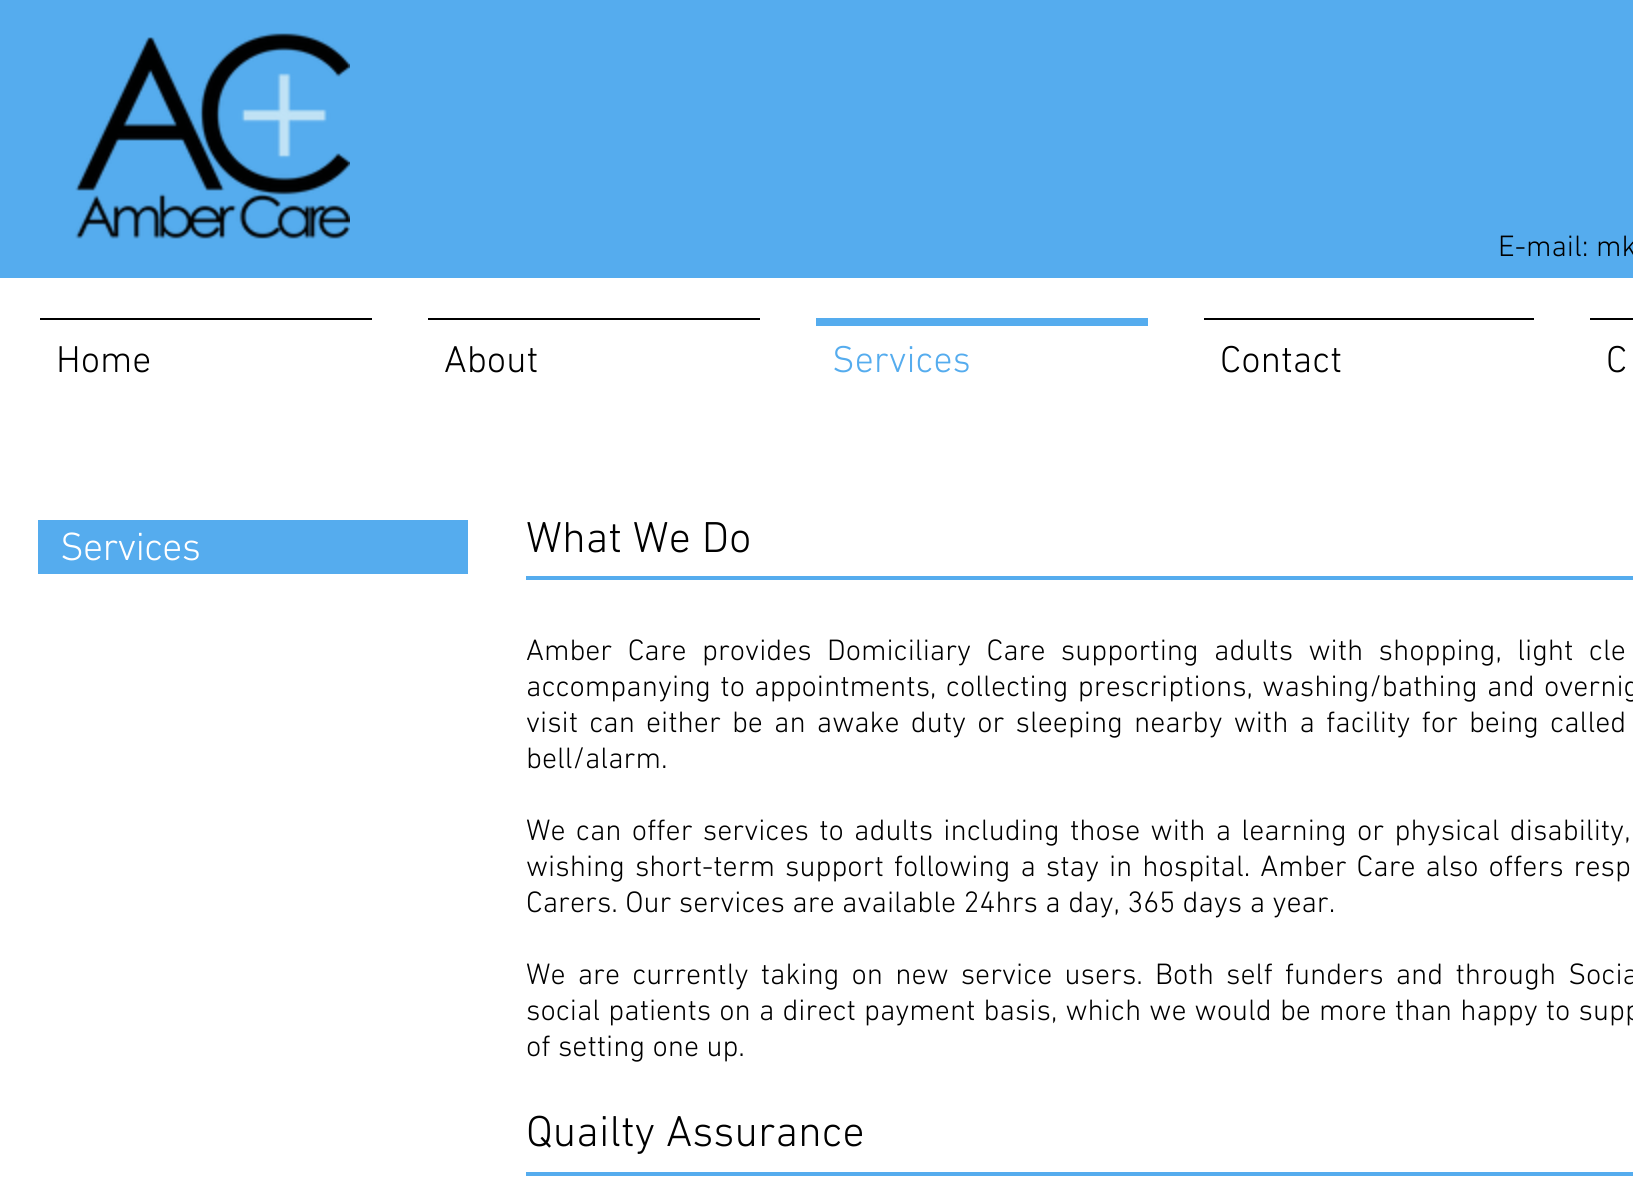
import math
import cairo


def use_color(cr, r, g, b):
  cr.set_source_rgb(r / 255, g / 255, b / 255)

def text(cr, x, y, s, family, size, color, bold=False, italic=False):
  cr.select_font_face(family, cairo.FONT_SLANT_ITALIC if italic else cairo.FONT_SLANT_NORMAL, cairo.FONT_WEIGHT_BOLD if bold else cairo.FONT_WEIGHT_NORMAL)
  cr.set_font_size(size)
  use_color(cr, *color)
  cr.move_to(x, y)
  cr.show_text(s)

def spaced_text(cr, x, y, s, letter, word):
  cr.move_to(x, y)
  for ch in s:
    cr.show_text(ch)
    cr.rel_move_to(letter + word * (ch == ' '), 0)

def box(cr, x, y, w, h, *color):
  use_color(cr, *color)
  cr.rectangle(x, y, w, h)
  cr.fill()

def picture(cr, path, x, y, w, h):
  cr.save()
  cr.set_source_surface(cairo.ImageSurface.create_from_png(path), x, y)
  cr.rectangle(x, y, w, h)
  cr.fill()
  cr.restore()

def draw(cr):
  use_color(cr, 255, 255, 255)
  cr.paint()
  box(cr, 0, 0, 1633, 278, 85, 172, 238)
  picture(cr, "img_01.png", 75, 33, 275, 206)
  box(cr, 40, 318, 332, 2, 0, 0, 0)
  box(cr, 428, 318, 332, 2, 0, 0, 0)
  box(cr, 816, 318, 332, 8, 85, 172, 238)
  box(cr, 1204, 318, 330, 2, 0, 0, 0)
  box(cr, 1590, 318, 43, 2, 0, 0, 0)
  box(cr, 38, 520, 430, 54, 85, 172, 238)
  box(cr, 526, 576, 1107, 4, 85, 172, 238)
  box(cr, 526, 1172, 1107, 4, 85, 172, 238)
  text(cr, 1498, 256, "E-mail: mk", "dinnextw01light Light", 30, (0, 0, 0))
  text(cr, 56, 372, "Home", "dinnextw01light Light", 38, (0, 0, 0))
  text(cr, 444, 372, "About", "dinnextw01light Light", 38, (0, 0, 0))
  text(cr, 832, 372, "Services", "dinnextw01light Light", 38, (85, 172, 238))
  text(cr, 1220, 372, "Contact", "dinnextw01light Light", 38, (0, 0, 0))
  text(cr, 1606, 372, "C", "dinnextw01light Light", 38, (0, 0, 0))
  cr.set_font_size(40)
  use_color(cr, 255, 255, 255)
  spaced_text(cr, 60, 560, "Services", -0.75, 0)
  text(cr, 526, 552, "What We Do", "dinnextw01light Light", 44, (0, 0, 0))
  cr.set_font_size(30)
  spaced_text(cr, 526, 660, "Amber Care provides Domiciliary Care supporting adults with shopping, light cle", 0, 8)
  spaced_text(cr, 526, 696, "accompanying to appointments, collecting prescriptions, washing/bathing and overnig", 0, 2)
  spaced_text(cr, 526, 732, "visit can either be an awake duty or sleeping nearby with a facility for being called", 0, 3.75)
  text(cr, 526, 768, "bell/alarm.", "dinnextw01light Light", 30, (0, 0, 0))
  spaced_text(cr, 526, 840, "We can offer services to adults including those with a learning or physical disability,", 0, 2.9)
  spaced_text(cr, 526, 876, "wishing short-term support following a stay in hospital. Amber Care also offers resp", 0, 2.6)
  text(cr, 526, 912, "Carers. Our services are available 24hrs a day, 365 days a year.", "dinnextw01light Light", 30, (0, 0, 0))
  spaced_text(cr, 526, 984, "We are currently taking on new service users. Both self funders and through Socia", 0, 4.75)
  spaced_text(cr, 526, 1020, "social patients on a direct payment basis, which we would be more than happy to supp", 0, 0.75)
  text(cr, 526, 1056, "of setting one up.", "dinnextw01light Light", 30, (0, 0, 0))
  text(cr, 526, 1146, "Quailty Assurance", "dinnextw01light Light", 44, (0, 0, 0))


surface = cairo.ImageSurface(cairo.FORMAT_RGB24, 1633, 1195)
cr = cairo.Context(surface)
options = cairo.FontOptions()
options.set_hint_metrics(cairo.HINT_METRICS_OFF)
options.set_hint_style(cairo.HINT_STYLE_NONE)
cr.set_font_options(options)
cr.set_miter_limit(4)
draw(cr)
surface.write_to_png("out.png")
